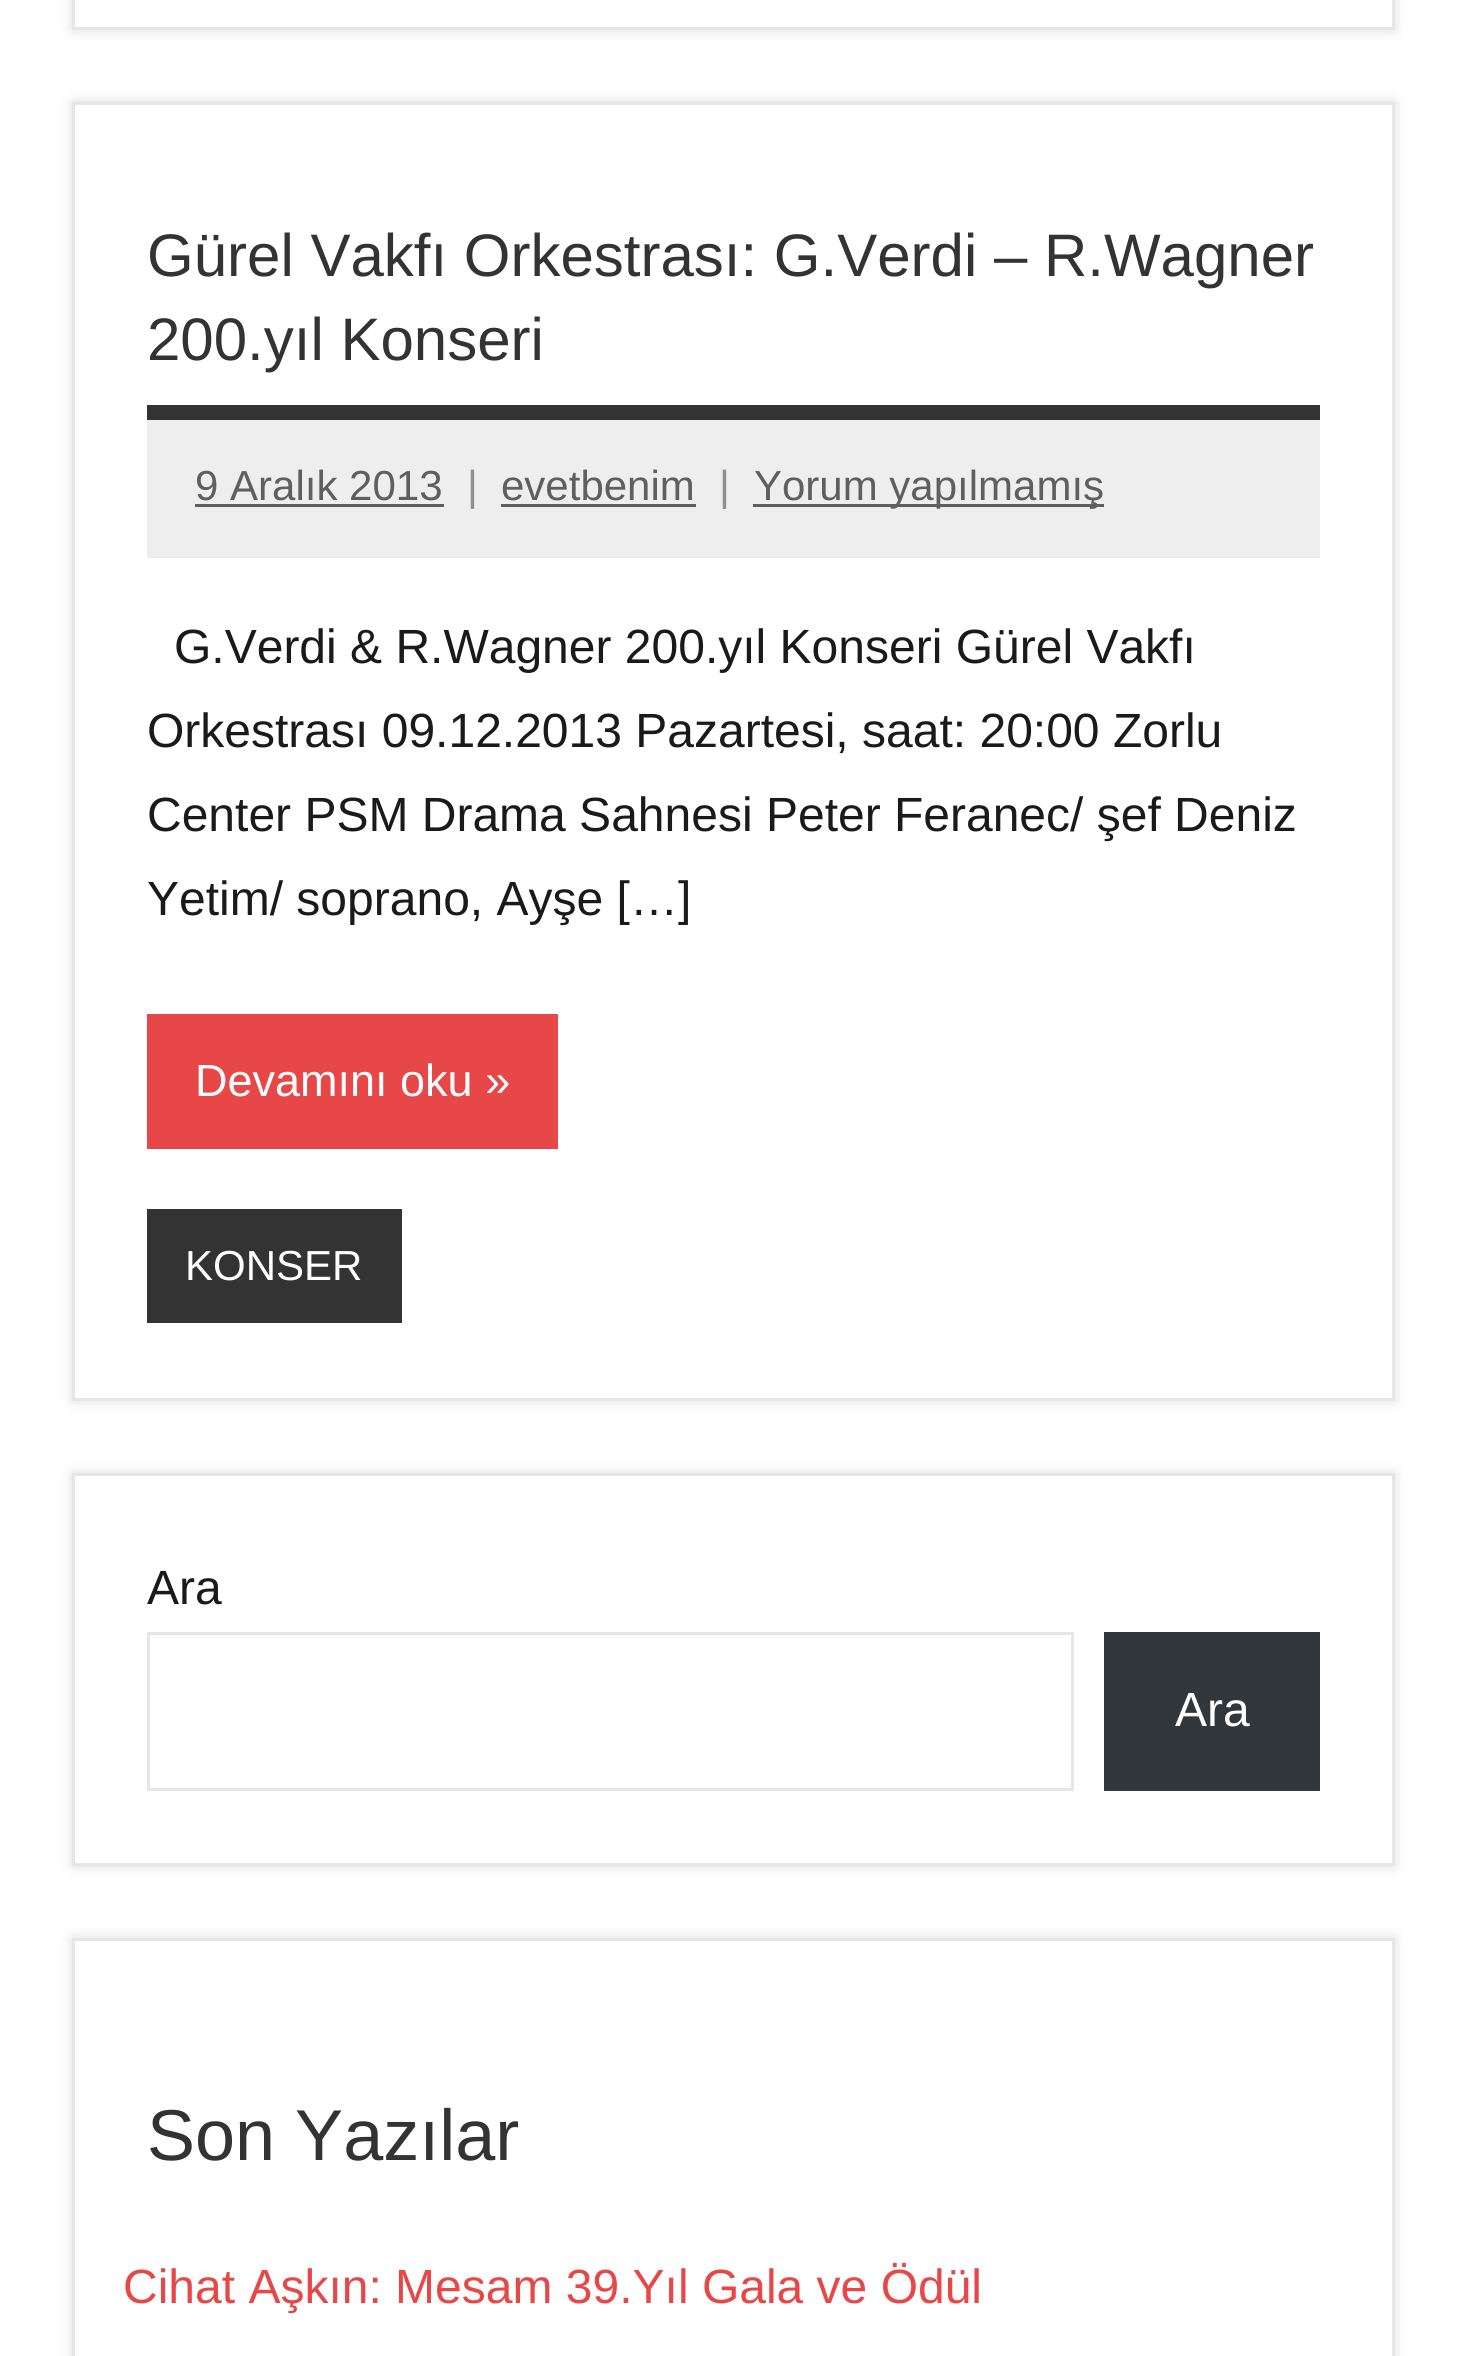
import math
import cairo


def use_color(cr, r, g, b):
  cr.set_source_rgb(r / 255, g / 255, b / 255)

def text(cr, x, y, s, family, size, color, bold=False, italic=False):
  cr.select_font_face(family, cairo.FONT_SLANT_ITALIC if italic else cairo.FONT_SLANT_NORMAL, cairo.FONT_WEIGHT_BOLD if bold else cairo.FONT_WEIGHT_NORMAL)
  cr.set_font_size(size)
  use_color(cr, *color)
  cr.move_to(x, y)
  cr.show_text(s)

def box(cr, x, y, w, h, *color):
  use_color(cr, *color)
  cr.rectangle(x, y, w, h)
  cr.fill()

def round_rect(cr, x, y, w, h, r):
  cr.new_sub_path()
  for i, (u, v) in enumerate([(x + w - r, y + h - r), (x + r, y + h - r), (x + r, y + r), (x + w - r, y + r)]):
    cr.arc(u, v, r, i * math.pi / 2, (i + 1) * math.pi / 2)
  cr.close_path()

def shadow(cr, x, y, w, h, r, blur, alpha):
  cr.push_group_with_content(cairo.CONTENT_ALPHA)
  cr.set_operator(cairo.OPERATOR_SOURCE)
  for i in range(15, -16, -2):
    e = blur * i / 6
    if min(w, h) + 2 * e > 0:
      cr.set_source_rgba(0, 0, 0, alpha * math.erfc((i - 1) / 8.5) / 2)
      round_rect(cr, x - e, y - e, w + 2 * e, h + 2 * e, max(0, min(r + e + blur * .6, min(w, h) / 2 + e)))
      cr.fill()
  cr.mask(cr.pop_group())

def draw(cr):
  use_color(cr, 255, 255, 255)
  cr.paint()
  cr.save()
  cr.set_fill_rule(cairo.FILL_RULE_EVEN_ODD)
  cr.new_path()
  cr.move_to(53, 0)
  cr.line_to(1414, 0)
  cr.line_to(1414, 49)
  cr.line_to(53, 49)
  cr.close_path()
  cr.move_to(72, -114)
  cr.line_to(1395, -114)
  cr.line_to(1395, 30)
  cr.line_to(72, 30)
  cr.close_path()
  cr.clip()
  use_color(cr, 221, 221, 221)
  shadow(cr, 72, -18, 1323, 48, 0, 6, 1)
  cr.restore()
  cr.rectangle(73.5, -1.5, 1320, 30)
  use_color(cr, 230, 230, 230)
  cr.set_line_width(3)
  cr.stroke()
  cr.save()
  cr.set_fill_rule(cairo.FILL_RULE_EVEN_ODD)
  cr.new_path()
  cr.move_to(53, 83)
  cr.line_to(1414, 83)
  cr.line_to(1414, 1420)
  cr.line_to(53, 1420)
  cr.close_path()
  cr.move_to(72, 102)
  cr.line_to(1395, 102)
  cr.line_to(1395, 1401)
  cr.line_to(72, 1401)
  cr.close_path()
  cr.clip()
  use_color(cr, 221, 221, 221)
  shadow(cr, 72, 102, 1323, 1299, 0, 6, 1)
  cr.restore()
  cr.rectangle(73.5, 103.5, 1320, 1296)
  cr.stroke()
  box(cr, 147, 405, 1173, 15, 51, 51, 51)
  box(cr, 147, 420, 1173, 138, 238, 238, 238)
  box(cr, 195, 504, 249, 3, 95, 95, 95)
  box(cr, 501, 504, 195, 3, 95, 95, 95)
  box(cr, 753, 504, 351, 3, 95, 95, 95)
  box(cr, 147, 1014, 411, 135, 232, 71, 71)
  box(cr, 147, 1209, 255, 114, 51, 51, 51)
  cr.save()
  cr.set_fill_rule(cairo.FILL_RULE_EVEN_ODD)
  cr.new_path()
  cr.move_to(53, 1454)
  cr.line_to(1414, 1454)
  cr.line_to(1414, 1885)
  cr.line_to(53, 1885)
  cr.close_path()
  cr.move_to(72, 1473)
  cr.line_to(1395, 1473)
  cr.line_to(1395, 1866)
  cr.line_to(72, 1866)
  cr.close_path()
  cr.clip()
  use_color(cr, 221, 221, 221)
  shadow(cr, 72, 1473, 1323, 393, 0, 6, 1)
  cr.restore()
  cr.rectangle(73.5, 1474.5, 1320, 390)
  use_color(cr, 230, 230, 230)
  cr.stroke()
  cr.rectangle(148.5, 1633.5, 924, 156)
  cr.stroke()
  box(cr, 1104, 1632, 216, 159, 50, 55, 60)
  cr.save()
  cr.set_fill_rule(cairo.FILL_RULE_EVEN_ODD)
  cr.new_path()
  cr.move_to(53, 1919)
  cr.line_to(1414, 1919)
  cr.line_to(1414, 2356)
  cr.line_to(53, 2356)
  cr.close_path()
  cr.move_to(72, 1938)
  cr.line_to(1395, 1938)
  cr.line_to(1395, 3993)
  cr.line_to(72, 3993)
  cr.close_path()
  cr.clip()
  use_color(cr, 221, 221, 221)
  shadow(cr, 72, 1938, 1323, 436, 0, 6, 1)
  cr.restore()
  cr.rectangle(73.5, 1939.5, 1320, 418)
  use_color(cr, 230, 230, 230)
  cr.stroke()
  text(cr, 147, 276, "Gürel Vakfı Orkestrası: G.Verdi – R.Wagner", "Liberation Sans", 60, (51, 51, 51))
  text(cr, 147, 360, "200.yıl Konseri", "Liberation Sans", 60, (51, 51, 51))
  text(cr, 195, 500, "9 Aralık 2013", "Liberation Sans", 42, (95, 95, 95))
  text(cr, 467, 500, "|", "Liberation Sans", 42, (143, 143, 143))
  text(cr, 501, 500, "evetbenim", "Liberation Sans", 42, (95, 95, 95))
  text(cr, 719, 500, "|", "Liberation Sans", 42, (143, 143, 143))
  text(cr, 754, 500, "Yorum yapılmamış", "Liberation Sans", 42, (95, 95, 95))
  text(cr, 174, 663, "G.Verdi & R.Wagner 200.yıl Konseri Gürel Vakfı", "Liberation Sans", 48, (26, 26, 26))
  text(cr, 147, 747, "Orkestrası 09.12.2013 Pazartesi, saat: 20:00 Zorlu", "Liberation Sans", 48, (26, 26, 26))
  text(cr, 147, 831, "Center PSM Drama Sahnesi Peter Feranec/ şef Deniz", "Liberation Sans", 48, (26, 26, 26))
  text(cr, 147, 915, "Yetim/ soprano, Ayşe […]", "Liberation Sans", 48, (26, 26, 26))
  text(cr, 195, 1096, "Devamını oku »", "Liberation Sans", 45, (255, 255, 255))
  text(cr, 185, 1280, "KONSER", "Liberation Sans", 42, (255, 255, 255))
  text(cr, 147, 1604, "Ara", "Liberation Sans", 48, (26, 26, 26))
  text(cr, 1175, 1726, "Ara", "Liberation Sans", 48, (255, 255, 255))
  text(cr, 147, 2160, "Son Yazılar", "Liberation Sans", 72, (51, 51, 51))
  text(cr, 123, 2303, "Cihat Aşkın: Mesam 39.Yıl Gala ve Ödül", "Liberation Sans", 48, (232, 71, 71))


surface = cairo.ImageSurface(cairo.FORMAT_RGB24, 1467, 2356)
cr = cairo.Context(surface)
options = cairo.FontOptions()
options.set_hint_metrics(cairo.HINT_METRICS_OFF)
options.set_hint_style(cairo.HINT_STYLE_NONE)
cr.set_font_options(options)
cr.set_miter_limit(4)
draw(cr)
surface.write_to_png("out.png")
